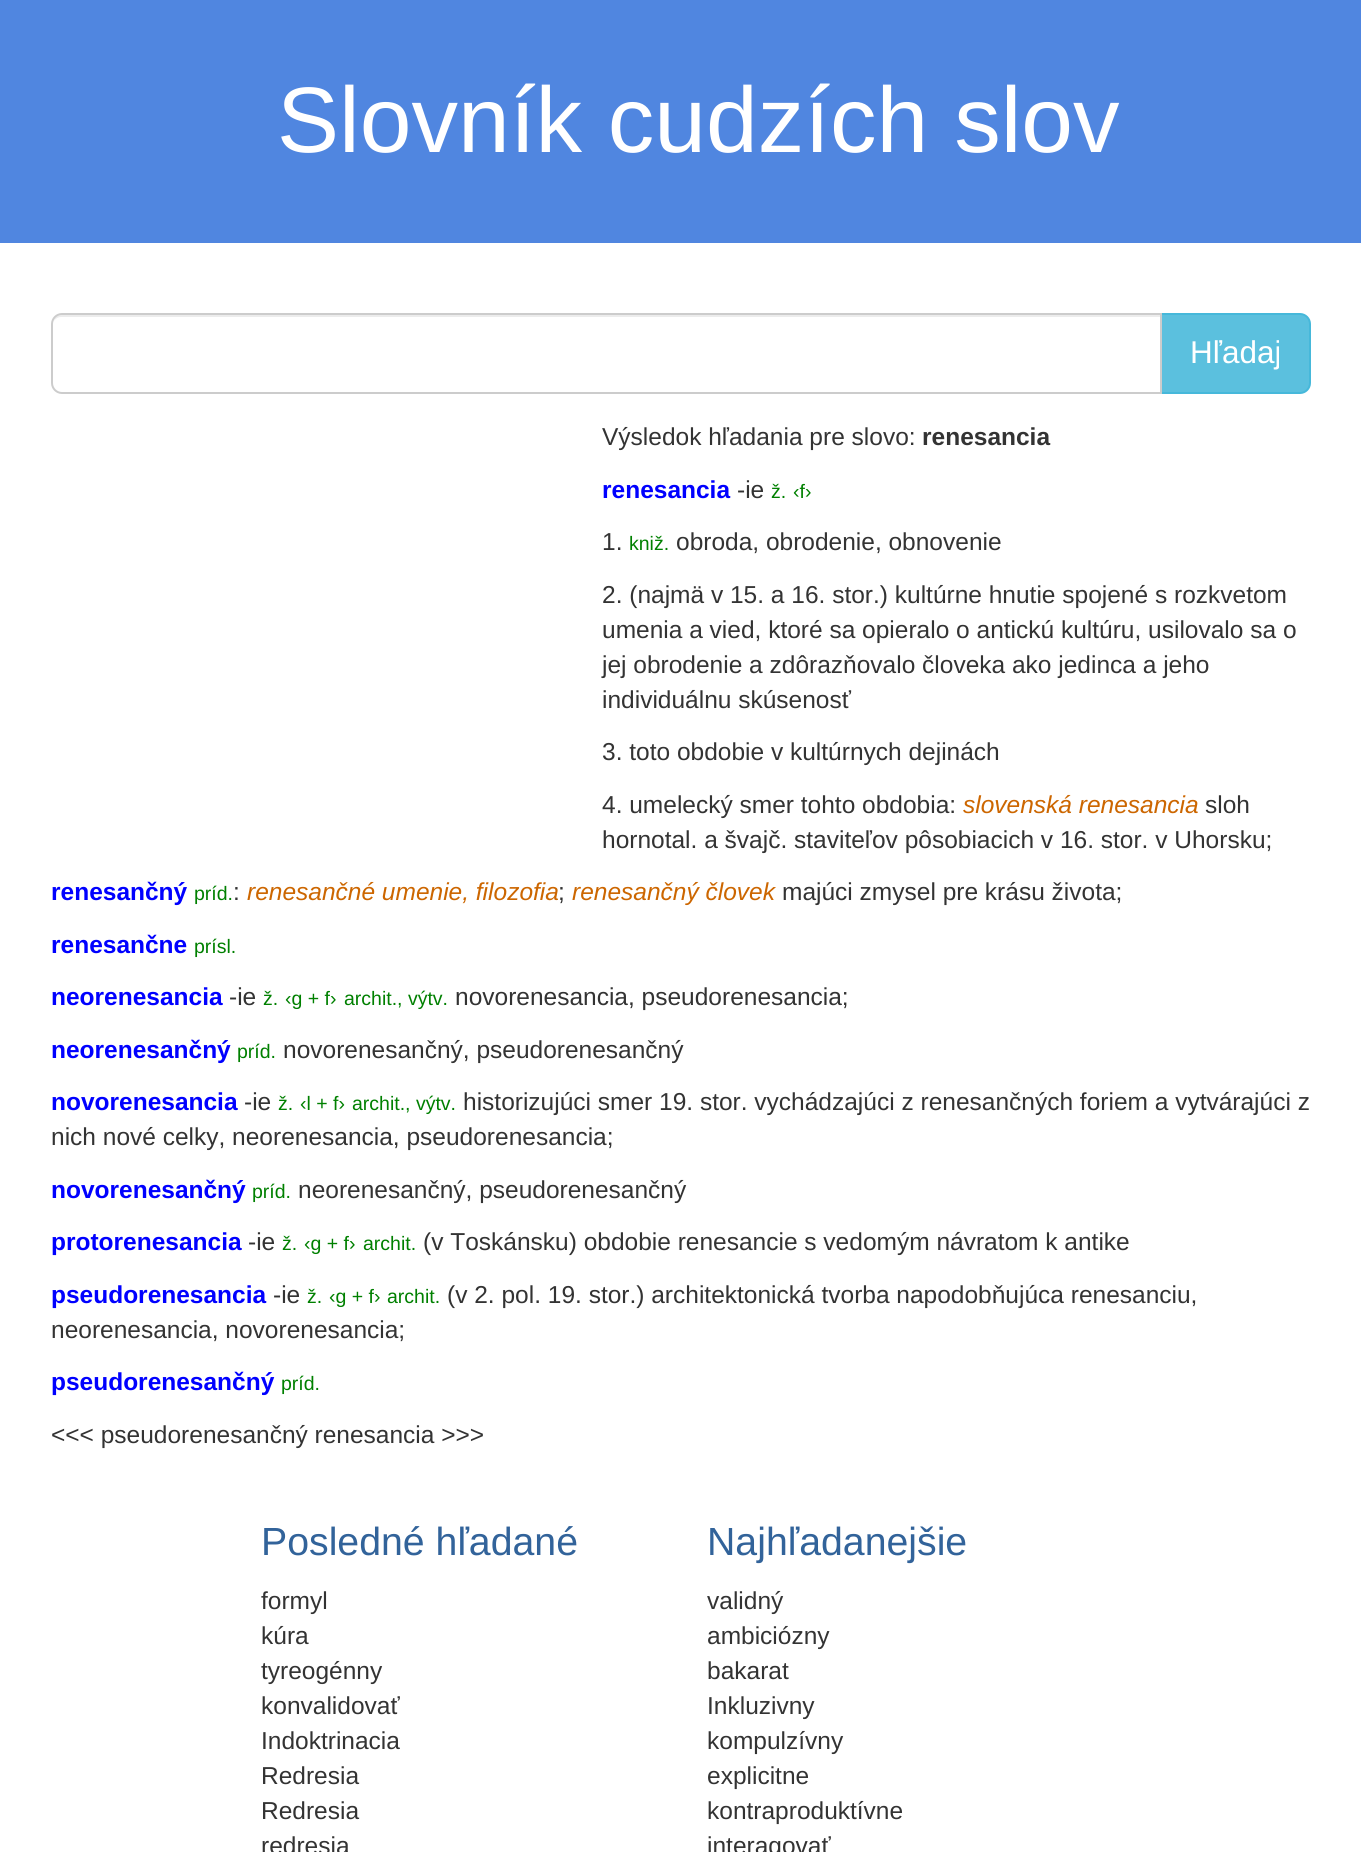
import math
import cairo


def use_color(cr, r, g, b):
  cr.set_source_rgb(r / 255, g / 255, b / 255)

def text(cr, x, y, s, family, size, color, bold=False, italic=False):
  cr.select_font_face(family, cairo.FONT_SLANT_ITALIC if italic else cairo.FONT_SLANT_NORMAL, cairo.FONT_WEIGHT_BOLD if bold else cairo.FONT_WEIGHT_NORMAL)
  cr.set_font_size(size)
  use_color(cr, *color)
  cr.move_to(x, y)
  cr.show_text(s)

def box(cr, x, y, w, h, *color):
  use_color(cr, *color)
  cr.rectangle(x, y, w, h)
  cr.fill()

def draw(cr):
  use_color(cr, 255, 255, 255)
  cr.paint()
  box(cr, 0, 0, 1361, 243, 80, 134, 224)
  use_color(cr, 91, 192, 222)
  cr.new_path()
  cr.move_to(1161, 314)
  cr.line_to(1300, 314)
  cr.curve_to(1305.5, 314, 1310, 318.5, 1310, 324)
  cr.line_to(1310, 383)
  cr.curve_to(1310, 388.5, 1305.5, 393, 1300, 393)
  cr.line_to(1161, 393)
  cr.close_path()
  cr.fill_preserve()
  use_color(cr, 70, 184, 218)
  cr.stroke()
  use_color(cr, 255, 255, 255)
  cr.new_path()
  cr.move_to(62, 313)
  cr.line_to(1162, 313)
  cr.line_to(1162, 394)
  cr.line_to(62, 394)
  cr.curve_to(56, 394, 51, 389, 51, 383)
  cr.line_to(51, 324)
  cr.curve_to(51, 318, 56, 313, 62, 313)
  cr.close_path()
  cr.fill()
  use_color(cr, 236, 236, 236)
  cr.new_path()
  cr.move_to(61, 317)
  cr.line_to(1160, 317)
  cr.line_to(1160, 315)
  cr.line_to(62, 315)
  cr.curve_to(58, 315, 55, 317, 54, 321)
  cr.curve_to(55, 319, 58, 317, 61, 317)
  cr.close_path()
  cr.fill()
  cr.new_path()
  cr.move_to(62, 314)
  cr.line_to(1161, 314)
  cr.line_to(1161, 393)
  cr.line_to(62, 393)
  cr.curve_to(56.5, 393, 52, 388.5, 52, 383)
  cr.line_to(52, 324)
  cr.curve_to(52, 318.5, 56.5, 314, 62, 314)
  cr.close_path()
  use_color(cr, 204, 204, 204)
  cr.stroke()
  text(cr, 277, 152, "Slovník cudzích slov", "Liberation Sans", 93, (255, 255, 255))
  text(cr, 1190, 363, "Hľadaj", "Liberation Sans", 31.5, (255, 255, 255))
  text(cr, 602, 445, "Výsledok hľadania pre slovo:", "Liberation Sans", 24.5, (51, 51, 51))
  text(cr, 922, 445, "renesancia", "Liberation Sans", 24.5, (51, 51, 51), bold=True)
  text(cr, 602, 498, "renesancia", "Liberation Sans", 24.5, (0, 0, 255), bold=True)
  text(cr, 737, 498, "-ie", "Liberation Sans", 24.5, (51, 51, 51))
  text(cr, 771, 498, "ž.", "Liberation Sans", 19.5, (0, 128, 0))
  text(cr, 793, 498, "‹f›", "Liberation Sans", 19.5, (0, 128, 0))
  text(cr, 602, 550, "1.", "Liberation Sans", 24.5, (51, 51, 51))
  text(cr, 629, 550, "kniž.", "Liberation Sans", 19.5, (0, 128, 0))
  text(cr, 676, 550, "obroda, obrodenie, obnovenie", "Liberation Sans", 24.5, (51, 51, 51))
  text(cr, 602, 603, "2. (najmä v 15. a 16. stor.) kultúrne hnutie spojené s rozkvetom", "Liberation Sans", 24.5, (51, 51, 51))
  text(cr, 602, 638, "umenia a vied, ktoré sa opieralo o antickú kultúru, usilovalo sa o", "Liberation Sans", 24.5, (51, 51, 51))
  text(cr, 602, 673, "jej obrodenie a zdôrazňovalo človeka ako jedinca a jeho", "Liberation Sans", 24.5, (51, 51, 51))
  text(cr, 602, 708, "individuálnu skúsenosť", "Liberation Sans", 24.5, (51, 51, 51))
  text(cr, 602, 760, "3. toto obdobie v kultúrnych dejinách", "Liberation Sans", 24.5, (51, 51, 51))
  text(cr, 602, 813, "4. umelecký smer tohto obdobia:", "Liberation Sans", 24.5, (51, 51, 51))
  text(cr, 963, 813, "slovenská renesancia", "Liberation Sans", 24.5, (204, 102, 0), italic=True)
  text(cr, 1205, 813, "sloh", "Liberation Sans", 24.5, (51, 51, 51))
  text(cr, 602, 848, "hornotal. a švajč. staviteľov pôsobiacich v 16. stor. v Uhorsku;", "Liberation Sans", 24.5, (51, 51, 51))
  text(cr, 51, 900, "renesančný", "Liberation Sans", 24.5, (0, 0, 255), bold=True)
  text(cr, 194, 900, "príd.", "Liberation Sans", 19.5, (0, 128, 0))
  text(cr, 233, 900, ":", "Liberation Sans", 24.5, (51, 51, 51))
  text(cr, 247, 900, "renesančné umenie, filozofia", "Liberation Sans", 24.5, (204, 102, 0), italic=True)
  text(cr, 558, 900, ";", "Liberation Sans", 24.5, (51, 51, 51))
  text(cr, 572, 900, "renesančný človek", "Liberation Sans", 24.5, (204, 102, 0), italic=True)
  text(cr, 782, 900, "majúci zmysel pre krásu života;", "Liberation Sans", 24.5, (51, 51, 51))
  text(cr, 51, 953, "renesančne", "Liberation Sans", 24.5, (0, 0, 255), bold=True)
  text(cr, 194, 953, "prísl.", "Liberation Sans", 19.5, (0, 128, 0))
  text(cr, 51, 1005, "neorenesancia", "Liberation Sans", 24.5, (0, 0, 255), bold=True)
  text(cr, 229, 1005, "-ie", "Liberation Sans", 24.5, (51, 51, 51))
  text(cr, 263, 1005, "ž.", "Liberation Sans", 19.5, (0, 128, 0))
  text(cr, 285, 1005, "‹g + f›", "Liberation Sans", 19.5, (0, 128, 0))
  text(cr, 344, 1005, "archit., výtv.", "Liberation Sans", 19.5, (0, 128, 0))
  text(cr, 455, 1005, "novorenesancia, pseudorenesancia;", "Liberation Sans", 24.5, (51, 51, 51))
  text(cr, 51, 1058, "neorenesančný", "Liberation Sans", 24.5, (0, 0, 255), bold=True)
  text(cr, 237, 1058, "príd.", "Liberation Sans", 19.5, (0, 128, 0))
  text(cr, 283, 1058, "novorenesančný, pseudorenesančný", "Liberation Sans", 24.5, (51, 51, 51))
  text(cr, 51, 1110, "novorenesancia", "Liberation Sans", 24.5, (0, 0, 255), bold=True)
  text(cr, 244, 1110, "-ie", "Liberation Sans", 24.5, (51, 51, 51))
  text(cr, 278, 1110, "ž.", "Liberation Sans", 19.5, (0, 128, 0))
  text(cr, 300, 1110, "‹l + f›", "Liberation Sans", 19.5, (0, 128, 0))
  text(cr, 352, 1110, "archit., výtv.", "Liberation Sans", 19.5, (0, 128, 0))
  text(cr, 463, 1110, "historizujúci smer 19. stor. vychádzajúci z renesančných foriem a vytvárajúci z", "Liberation Sans", 24.5, (51, 51, 51))
  text(cr, 51, 1145, "nich nové celky, neorenesancia, pseudorenesancia;", "Liberation Sans", 24.5, (51, 51, 51))
  text(cr, 51, 1198, "novorenesančný", "Liberation Sans", 24.5, (0, 0, 255), bold=True)
  text(cr, 252, 1198, "príd.", "Liberation Sans", 19.5, (0, 128, 0))
  text(cr, 298, 1198, "neorenesančný, pseudorenesančný", "Liberation Sans", 24.5, (51, 51, 51))
  text(cr, 51, 1250, "protorenesancia", "Liberation Sans", 24.5, (0, 0, 255), bold=True)
  text(cr, 248, 1250, "-ie", "Liberation Sans", 24.5, (51, 51, 51))
  text(cr, 282, 1250, "ž.", "Liberation Sans", 19.5, (0, 128, 0))
  text(cr, 304, 1250, "‹g + f›", "Liberation Sans", 19.5, (0, 128, 0))
  text(cr, 363, 1250, "archit.", "Liberation Sans", 19.5, (0, 128, 0))
  text(cr, 423, 1250, "(v Toskánsku) obdobie renesancie s vedomým návratom k antike", "Liberation Sans", 24.5, (51, 51, 51))
  text(cr, 51, 1303, "pseudorenesancia", "Liberation Sans", 24.5, (0, 0, 255), bold=True)
  text(cr, 273, 1303, "-ie", "Liberation Sans", 24.5, (51, 51, 51))
  text(cr, 307, 1303, "ž.", "Liberation Sans", 19.5, (0, 128, 0))
  text(cr, 329, 1303, "‹g + f›", "Liberation Sans", 19.5, (0, 128, 0))
  text(cr, 387, 1303, "archit.", "Liberation Sans", 19.5, (0, 128, 0))
  text(cr, 447, 1303, "(v 2. pol. 19. stor.) architektonická tvorba napodobňujúca renesanciu,", "Liberation Sans", 24.5, (51, 51, 51))
  text(cr, 51, 1338, "neorenesancia, novorenesancia;", "Liberation Sans", 24.5, (51, 51, 51))
  text(cr, 51, 1390, "pseudorenesančný", "Liberation Sans", 24.5, (0, 0, 255), bold=True)
  text(cr, 281, 1390, "príd.", "Liberation Sans", 19.5, (0, 128, 0))
  text(cr, 51, 1443, "<<< pseudorenesančný renesancia >>>", "Liberation Sans", 24.5, (51, 51, 51))
  text(cr, 261, 1555, "Posledné hľadané", "Liberation Sans", 39.25, (50, 99, 154))
  text(cr, 261, 1609, "formyl", "Liberation Sans", 24.5, (51, 51, 51))
  text(cr, 261, 1644, "kúra", "Liberation Sans", 24.5, (51, 51, 51))
  text(cr, 261, 1679, "tyreogénny", "Liberation Sans", 24.5, (51, 51, 51))
  text(cr, 261, 1714, "konvalidovať", "Liberation Sans", 24.5, (51, 51, 51))
  text(cr, 261, 1749, "Indoktrinacia", "Liberation Sans", 24.5, (51, 51, 51))
  text(cr, 261, 1784, "Redresia", "Liberation Sans", 24.5, (51, 51, 51))
  text(cr, 261, 1819, "Redresia", "Liberation Sans", 24.5, (51, 51, 51))
  text(cr, 261, 1854, "redresia", "Liberation Sans", 24.5, (51, 51, 51))
  text(cr, 707, 1555, "Najhľadanejšie", "Liberation Sans", 39.25, (50, 99, 154))
  text(cr, 707, 1609, "validný", "Liberation Sans", 24.5, (51, 51, 51))
  text(cr, 707, 1644, "ambiciózny", "Liberation Sans", 24.5, (51, 51, 51))
  text(cr, 707, 1679, "bakarat", "Liberation Sans", 24.5, (51, 51, 51))
  text(cr, 707, 1714, "Inkluzivny", "Liberation Sans", 24.5, (51, 51, 51))
  text(cr, 707, 1749, "kompulzívny", "Liberation Sans", 24.5, (51, 51, 51))
  text(cr, 707, 1784, "explicitne", "Liberation Sans", 24.5, (51, 51, 51))
  text(cr, 707, 1819, "kontraproduktívne", "Liberation Sans", 24.5, (51, 51, 51))
  text(cr, 707, 1854, "interagovať", "Liberation Sans", 24.5, (51, 51, 51))


surface = cairo.ImageSurface(cairo.FORMAT_RGB24, 1361, 1852)
cr = cairo.Context(surface)
options = cairo.FontOptions()
options.set_hint_metrics(cairo.HINT_METRICS_OFF)
options.set_hint_style(cairo.HINT_STYLE_NONE)
cr.set_font_options(options)
cr.set_miter_limit(4)
draw(cr)
surface.write_to_png("out.png")
